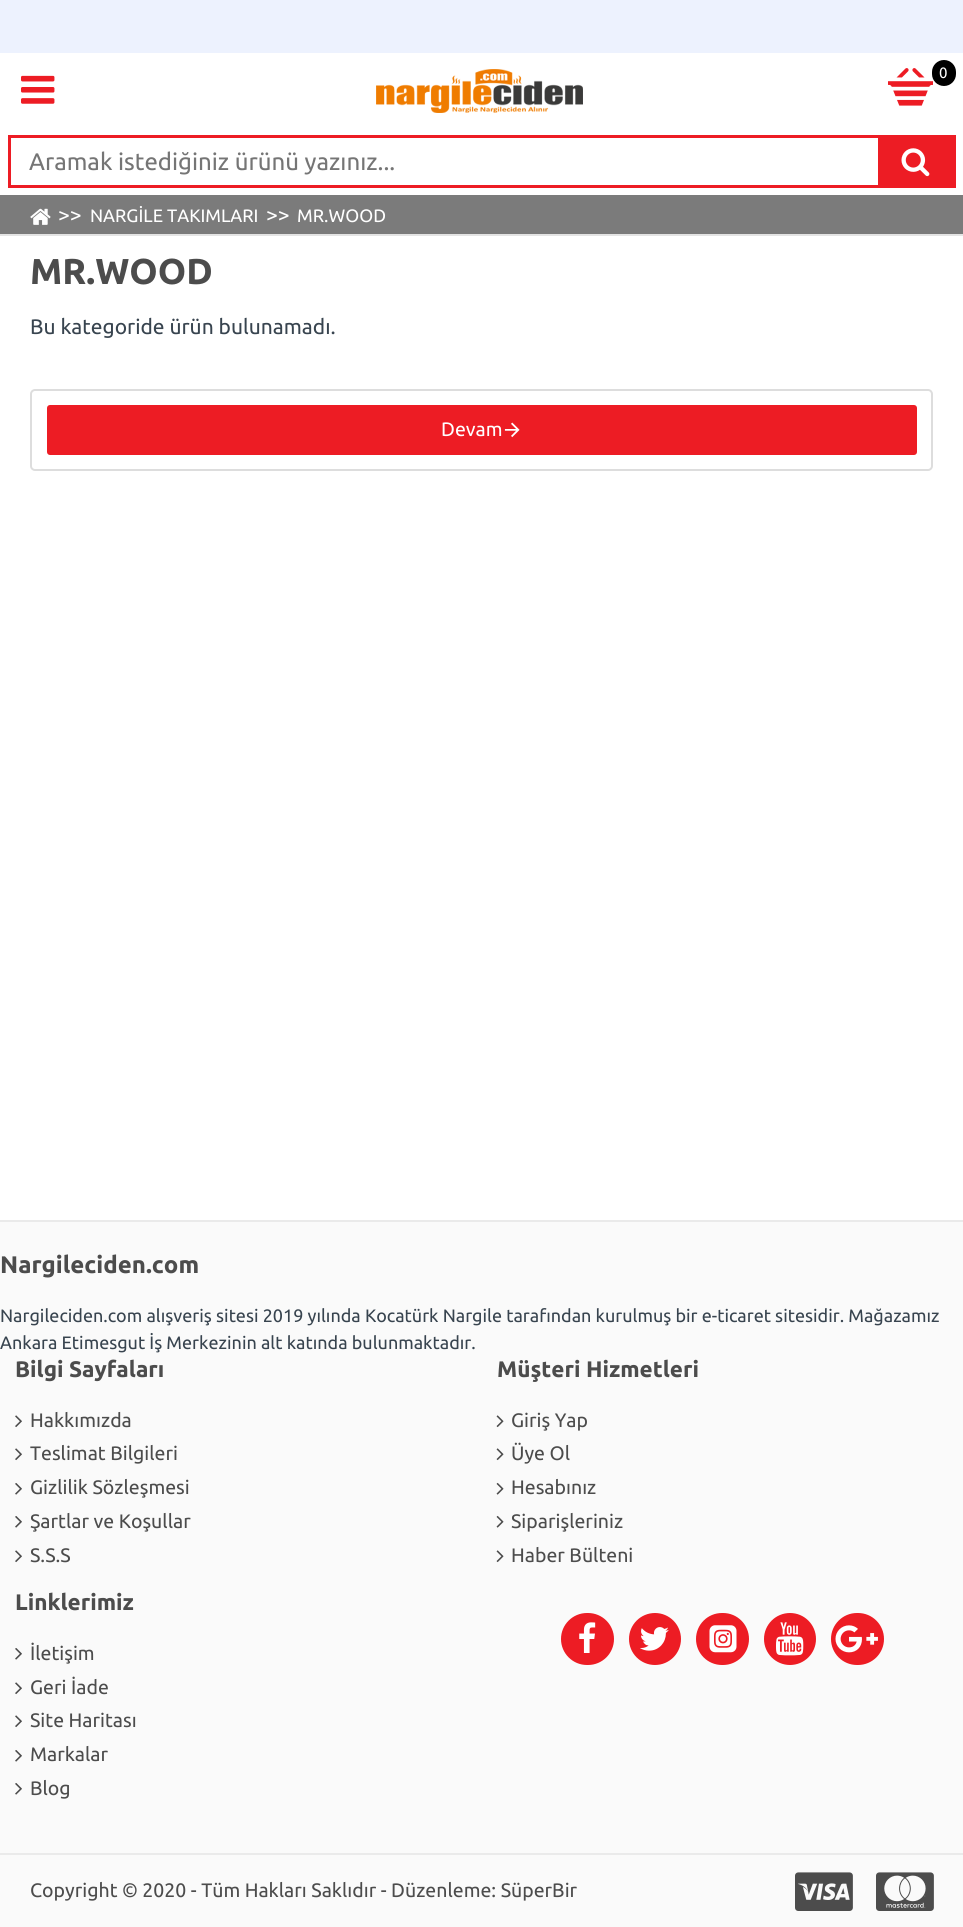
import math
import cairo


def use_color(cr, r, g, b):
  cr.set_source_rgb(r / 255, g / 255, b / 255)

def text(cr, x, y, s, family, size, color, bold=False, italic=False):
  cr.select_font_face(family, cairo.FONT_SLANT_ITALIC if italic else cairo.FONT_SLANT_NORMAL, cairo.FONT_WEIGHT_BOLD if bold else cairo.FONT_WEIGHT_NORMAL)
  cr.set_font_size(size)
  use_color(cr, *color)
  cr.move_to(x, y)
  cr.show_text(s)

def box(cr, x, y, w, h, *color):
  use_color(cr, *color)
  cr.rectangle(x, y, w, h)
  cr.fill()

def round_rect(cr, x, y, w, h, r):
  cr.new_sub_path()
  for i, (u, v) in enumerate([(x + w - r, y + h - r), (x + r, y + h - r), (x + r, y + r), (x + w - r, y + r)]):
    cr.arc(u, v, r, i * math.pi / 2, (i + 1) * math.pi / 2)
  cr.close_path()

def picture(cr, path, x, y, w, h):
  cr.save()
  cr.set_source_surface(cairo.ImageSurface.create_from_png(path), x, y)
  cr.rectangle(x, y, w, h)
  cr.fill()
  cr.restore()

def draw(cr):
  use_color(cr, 255, 255, 255)
  cr.paint()
  box(cr, 0, 0, 963, 53, 237, 242, 254)
  picture(cr, "img_01.png", 21, 75, 34, 29)
  picture(cr, "img_02.png", 376, 69, 207, 44)
  picture(cr, "img_03.png", 888, 68, 45, 38)
  use_color(cr, 0, 0, 0)
  round_rect(cr, 932, 60, 24, 26, 12)
  cr.fill()
  cr.rectangle(9.5, 136.5, 945, 50)
  use_color(cr, 237, 28, 36)
  cr.set_line_width(3)
  cr.stroke()
  box(cr, 878, 138, 75, 47, 237, 28, 36)
  picture(cr, "img_04.png", 901, 148, 29, 29)
  box(cr, 0, 195, 963, 39, 123, 123, 123)
  box(cr, 0, 234, 963, 2, 228, 228, 228)
  picture(cr, "img_05.png", 30, 208, 21, 17)
  round_rect(cr, 31, 390, 901, 80, 4)
  use_color(cr, 221, 221, 221)
  cr.set_line_width(2)
  cr.stroke()
  use_color(cr, 237, 28, 36)
  round_rect(cr, 47, 405, 870, 50, 3)
  cr.fill()
  picture(cr, "img_06.png", 504, 422, 16, 16)
  box(cr, 0, 1222, 963, 705, 250, 250, 250)
  box(cr, 0, 1220, 963, 2, 234, 234, 234)
  picture(cr, "img_07.png", 15, 1415, 7, 13)
  picture(cr, "img_07.png", 15, 1448, 7, 13)
  picture(cr, "img_08.png", 15, 1483, 7, 12)
  picture(cr, "img_08.png", 15, 1516, 7, 12)
  picture(cr, "img_07.png", 15, 1550, 7, 13)
  picture(cr, "img_09.png", 496, 1415, 8, 13)
  picture(cr, "img_09.png", 496, 1448, 8, 13)
  picture(cr, "img_10.png", 496, 1482, 8, 13)
  picture(cr, "img_10.png", 496, 1515, 8, 13)
  picture(cr, "img_09.png", 496, 1550, 8, 13)
  picture(cr, "img_08.png", 15, 1648, 7, 12)
  picture(cr, "img_07.png", 15, 1682, 7, 13)
  picture(cr, "img_07.png", 15, 1715, 7, 13)
  picture(cr, "img_08.png", 15, 1750, 7, 12)
  picture(cr, "img_08.png", 15, 1783, 7, 12)
  use_color(cr, 237, 28, 36)
  round_rect(cr, 561, 1613, 53, 52, 26)
  cr.fill()
  picture(cr, "img_11.png", 579, 1622, 17, 31)
  cr.arc(655, 1639, 26, 0, 2 * math.pi)
  cr.fill()
  picture(cr, "img_12.png", 640, 1627, 29, 24)
  round_rect(cr, 696, 1613, 53, 52, 26)
  cr.fill()
  picture(cr, "img_13.png", 709, 1625, 28, 28)
  cr.arc(790, 1639, 26, 0, 2 * math.pi)
  cr.fill()
  picture(cr, "img_14.png", 776, 1622, 28, 34)
  round_rect(cr, 831, 1613, 53, 52, 26)
  cr.fill()
  picture(cr, "img_15.png", 835, 1625, 43, 28)
  box(cr, 0, 1853, 963, 2, 234, 234, 234)
  picture(cr, "img_16.png", 795, 1872, 58, 39)
  picture(cr, "img_17.png", 876, 1872, 58, 39)
  text(cr, 939, 78, "0", "Ubuntu", 15, (255, 255, 255))
  text(cr, 29, 170, "Aramak istediğiniz ürünü yazınız...", "Ubuntu", 24, (117, 117, 117))
  text(cr, 58, 222, ">>", "Ubuntu", 21, (255, 255, 255))
  text(cr, 90, 222, "NARGİLE TAKIMLARI", "Ubuntu", 18, (255, 255, 255))
  text(cr, 266, 222, ">>", "Ubuntu", 21, (255, 255, 255))
  text(cr, 297, 222, "MR.WOOD", "Ubuntu", 18, (255, 255, 255))
  text(cr, 30, 284, "MR.WOOD", "Ubuntu", 36, (76, 76, 76), bold=True)
  text(cr, 30, 334, "Bu kategoride ürün bulunamadı.", "Ubuntu", 21, (56, 68, 79))
  text(cr, 441, 436, "Devam", "Ubuntu", 19.5, (255, 255, 255))
  text(cr, 0, 1273, "Nargileciden.com", "Ubuntu", 24, (76, 76, 76), bold=True)
  text(cr, 0, 1322, "Nargileciden.com alışveriş sitesi 2019 yılında Kocatürk Nargile tarafından kurulmuş bir e-ticaret sitesidir. Mağazamız", "Ubuntu", 18, (56, 68, 79))
  text(cr, 0, 1349, "Ankara Etimesgut İş Merkezinin alt katında bulunmaktadır.", "Ubuntu", 18, (56, 68, 79))
  text(cr, 15, 1377, "Bilgi Sayfaları", "Ubuntu", 22.5, (76, 76, 76), bold=True)
  text(cr, 30, 1427, "Hakkımızda", "Ubuntu", 19.5, (76, 76, 76))
  text(cr, 30, 1460, "Teslimat Bilgileri", "Ubuntu", 19.5, (76, 76, 76))
  text(cr, 30, 1494, "Gizlilik Sözleşmesi", "Ubuntu", 19.5, (76, 76, 76))
  text(cr, 30, 1528, "Şartlar ve Koşullar", "Ubuntu", 19.5, (76, 76, 76))
  text(cr, 30, 1562, "S.S.S", "Ubuntu", 19.5, (76, 76, 76))
  text(cr, 497, 1377, "Müşteri Hizmetleri", "Ubuntu", 22.5, (76, 76, 76), bold=True)
  text(cr, 511, 1427, "Giriş Yap", "Ubuntu", 19.5, (76, 76, 76))
  text(cr, 511, 1460, "Üye Ol", "Ubuntu", 19.5, (76, 76, 76))
  text(cr, 511, 1494, "Hesabınız", "Ubuntu", 19.5, (76, 76, 76))
  text(cr, 511, 1528, "Siparişleriniz", "Ubuntu", 19.5, (76, 76, 76))
  text(cr, 511, 1562, "Haber Bülteni", "Ubuntu", 19.5, (76, 76, 76))
  text(cr, 15, 1610, "Linklerimiz", "Ubuntu", 22.5, (76, 76, 76), bold=True)
  text(cr, 30, 1660, "İletişim", "Ubuntu", 19.5, (76, 76, 76))
  text(cr, 30, 1694, "Geri İade", "Ubuntu", 19.5, (76, 76, 76))
  text(cr, 30, 1727, "Site Haritası", "Ubuntu", 19.5, (76, 76, 76))
  text(cr, 30, 1761, "Markalar", "Ubuntu", 19.5, (76, 76, 76))
  text(cr, 30, 1795, "Blog", "Ubuntu", 19.5, (76, 76, 76))
  text(cr, 30, 1897, "Copyright © 2020 - Tüm Hakları Saklıdır - Düzenleme: SüperBir", "Ubuntu", 19.5, (76, 76, 76))


surface = cairo.ImageSurface(cairo.FORMAT_RGB24, 963, 1927)
cr = cairo.Context(surface)
options = cairo.FontOptions()
options.set_hint_metrics(cairo.HINT_METRICS_OFF)
options.set_hint_style(cairo.HINT_STYLE_NONE)
cr.set_font_options(options)
cr.set_miter_limit(4)
draw(cr)
surface.write_to_png("out.png")
